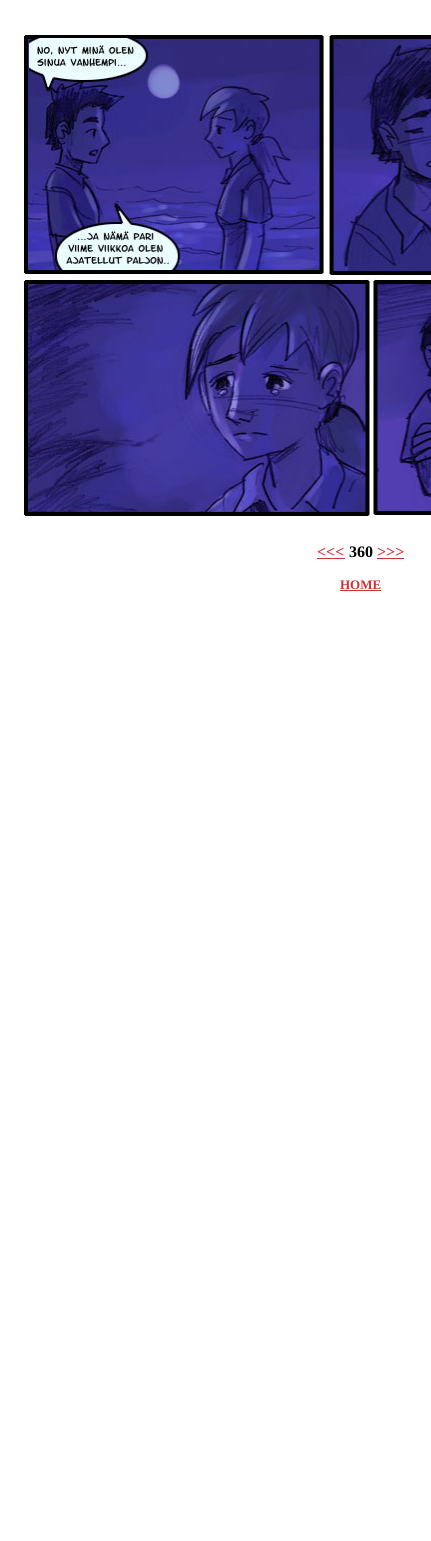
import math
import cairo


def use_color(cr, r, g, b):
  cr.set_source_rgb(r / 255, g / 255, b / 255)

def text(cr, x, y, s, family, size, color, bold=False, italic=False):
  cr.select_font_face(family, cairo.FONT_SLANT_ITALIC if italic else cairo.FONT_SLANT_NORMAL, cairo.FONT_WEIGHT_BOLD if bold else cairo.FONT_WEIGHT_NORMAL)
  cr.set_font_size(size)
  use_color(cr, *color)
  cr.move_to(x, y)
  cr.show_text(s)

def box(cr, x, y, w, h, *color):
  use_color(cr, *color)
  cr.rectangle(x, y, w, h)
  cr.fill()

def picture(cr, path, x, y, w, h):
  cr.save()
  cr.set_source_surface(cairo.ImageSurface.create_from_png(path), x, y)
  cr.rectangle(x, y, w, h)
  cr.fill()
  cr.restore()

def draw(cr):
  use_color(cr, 255, 255, 255)
  cr.paint()
  picture(cr, "img_01.png", 19, 33, 412, 488)
  box(cr, 317, 558, 28, 1, 204, 51, 51)
  box(cr, 377, 558, 27, 1, 204, 51, 51)
  box(cr, 340, 590, 41, 1, 204, 51, 51)
  text(cr, 317, 557, "<<<", "Liberation Serif", 16, (204, 51, 51), bold=True)
  text(cr, 349, 557, "360", "Liberation Serif", 16, (0, 0, 0), bold=True)
  text(cr, 377, 557, ">>>", "Liberation Serif", 16, (204, 51, 51), bold=True)
  text(cr, 340, 589, "HOME", "Liberation Serif", 13, (204, 51, 51), bold=True)


surface = cairo.ImageSurface(cairo.FORMAT_RGB24, 431, 1541)
cr = cairo.Context(surface)
options = cairo.FontOptions()
options.set_hint_metrics(cairo.HINT_METRICS_OFF)
options.set_hint_style(cairo.HINT_STYLE_NONE)
cr.set_font_options(options)
cr.set_miter_limit(4)
draw(cr)
surface.write_to_png("out.png")
